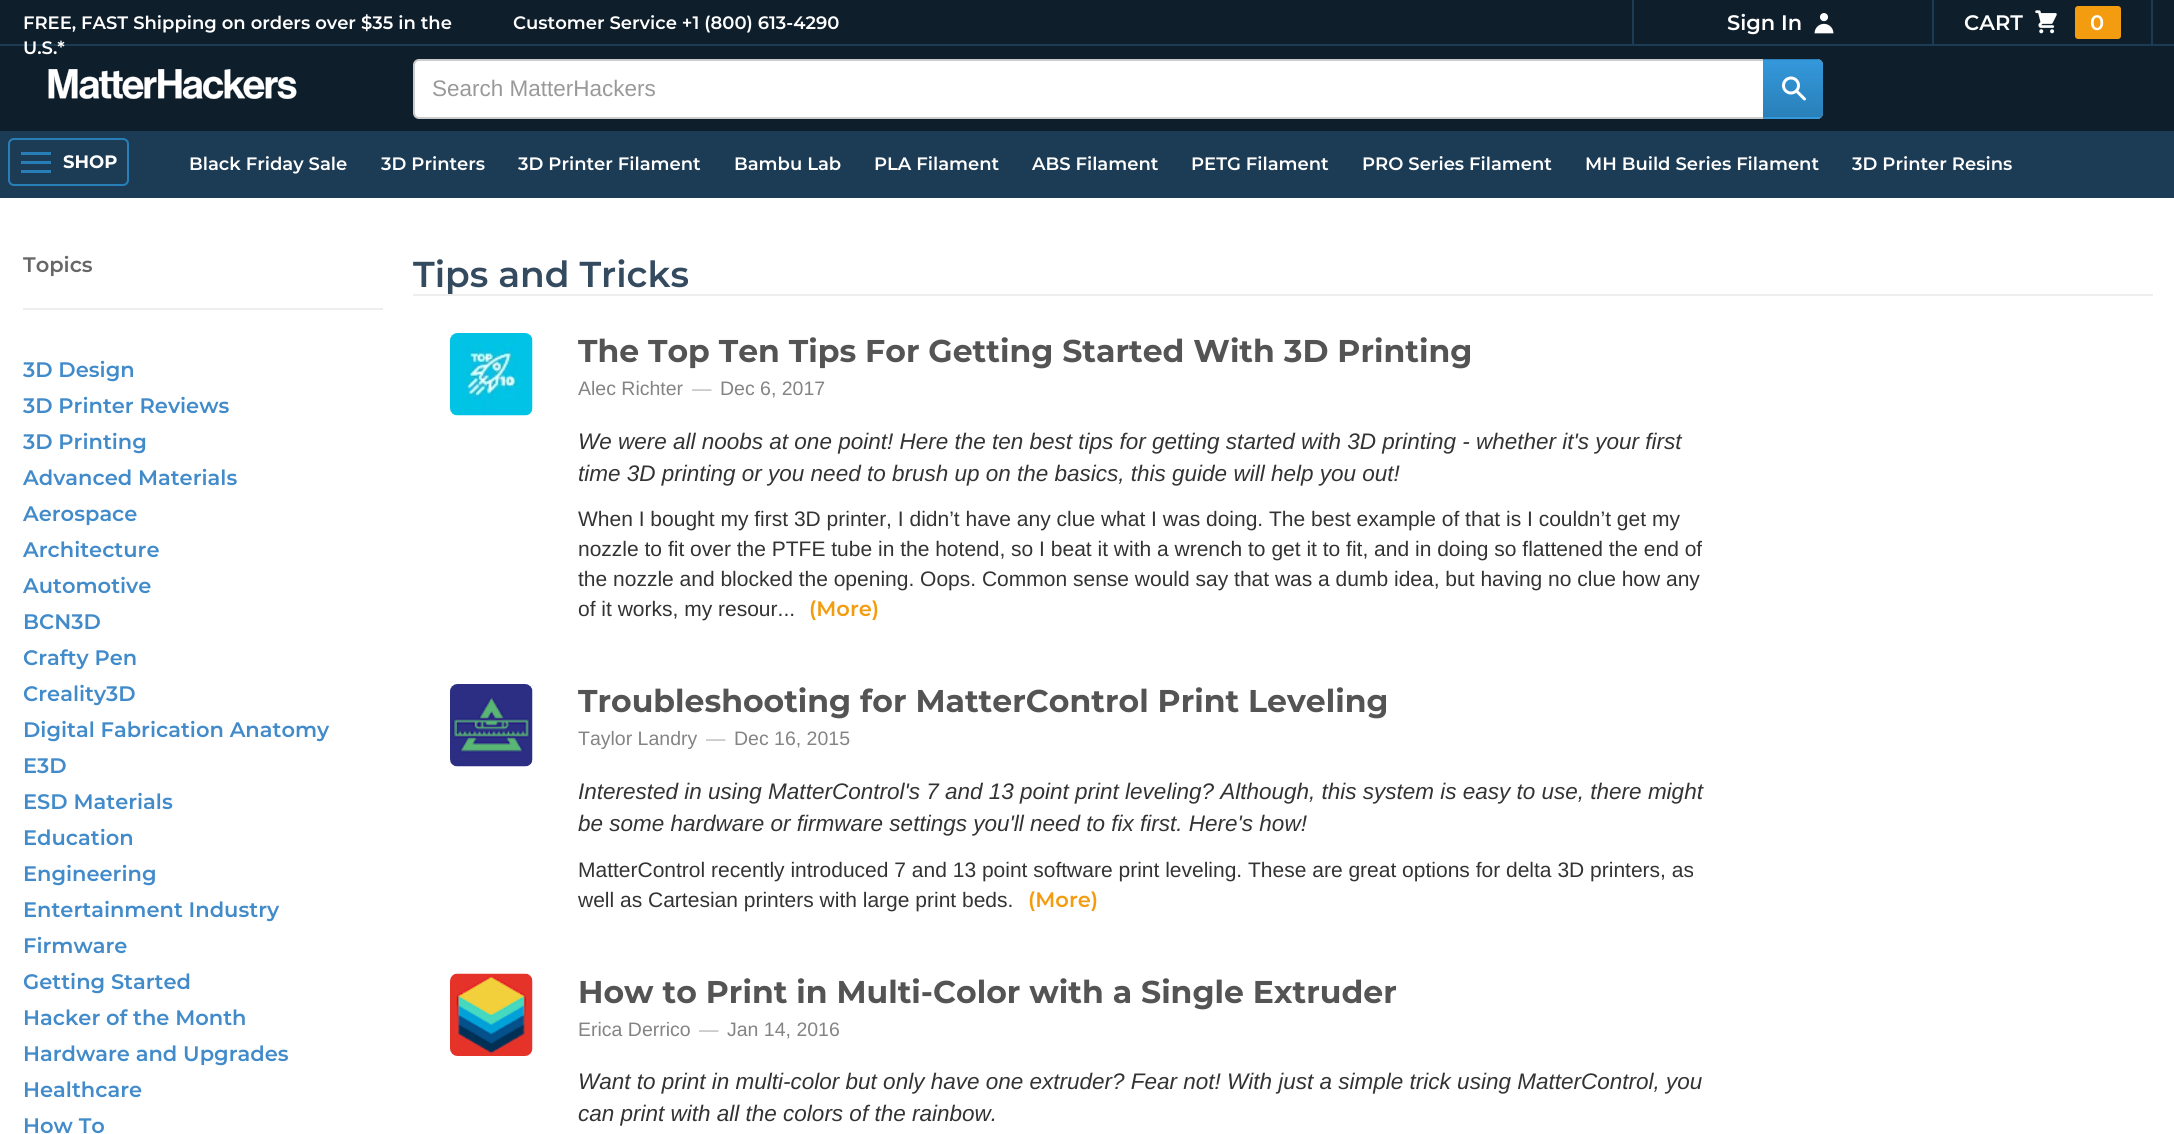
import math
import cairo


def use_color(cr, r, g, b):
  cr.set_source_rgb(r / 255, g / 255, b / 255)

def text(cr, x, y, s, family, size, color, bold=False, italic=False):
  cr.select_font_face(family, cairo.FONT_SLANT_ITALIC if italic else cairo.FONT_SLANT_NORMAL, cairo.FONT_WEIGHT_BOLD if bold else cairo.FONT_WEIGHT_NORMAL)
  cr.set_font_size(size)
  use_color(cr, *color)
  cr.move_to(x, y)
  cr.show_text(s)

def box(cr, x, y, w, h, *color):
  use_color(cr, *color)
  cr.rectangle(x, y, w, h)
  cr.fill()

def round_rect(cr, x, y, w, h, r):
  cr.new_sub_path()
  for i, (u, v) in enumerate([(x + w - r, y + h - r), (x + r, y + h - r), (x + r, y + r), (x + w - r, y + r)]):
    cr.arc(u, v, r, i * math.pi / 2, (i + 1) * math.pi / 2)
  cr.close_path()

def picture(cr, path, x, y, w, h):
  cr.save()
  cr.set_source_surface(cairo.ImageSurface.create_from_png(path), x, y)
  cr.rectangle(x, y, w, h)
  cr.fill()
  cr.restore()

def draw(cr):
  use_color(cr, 255, 255, 255)
  cr.paint()
  box(cr, 0, 0, 2174, 131, 14, 30, 43)
  box(cr, 0, 44, 2174, 2, 28, 60, 86)
  box(cr, 1632, 0, 2, 45, 28, 60, 86)
  picture(cr, "img_01.png", 1814, 13, 20, 21)
  box(cr, 2151, 0, 2, 45, 28, 60, 86)
  box(cr, 1932, 0, 2, 45, 28, 60, 86)
  picture(cr, "img_02.png", 2035, 10, 22, 24)
  use_color(cr, 243, 156, 15)
  round_rect(cr, 2075, 6, 46, 33, 3)
  cr.fill()
  picture(cr, "img_03.png", 48, 69, 249, 30)
  use_color(cr, 255, 255, 255)
  round_rect(cr, 414, 60, 1408, 58, 5)
  cr.fill_preserve()
  use_color(cr, 204, 204, 204)
  cr.stroke()
  cr.save()
  cr.new_path()
  cr.move_to(1763, 59)
  cr.line_to(1817, 59)
  cr.curve_to(1820.5, 59, 1823, 61.5, 1823, 65)
  cr.line_to(1823, 113)
  cr.curve_to(1823, 116.5, 1820.5, 119, 1817, 119)
  cr.line_to(1763, 119)
  cr.close_path()
  cr.clip()
  gradient = cairo.LinearGradient(1793, 3, 1793, 60)
  gradient.add_color_stop_rgba(0, 0.204, 0.596, 0.859, 1)
  gradient.add_color_stop_rgba(1, 0.161, 0.502, 0.725, 1)
  cr.set_source(gradient)
  cr.rectangle(1763, 59, 60, 1)
  cr.fill()
  gradient = cairo.LinearGradient(1793, 60, 1793, 117)
  gradient.add_color_stop_rgba(0, 0.204, 0.596, 0.859, 1)
  gradient.add_color_stop_rgba(1, 0.161, 0.502, 0.725, 1)
  cr.set_source(gradient)
  cr.rectangle(1763, 60, 60, 57)
  cr.fill()
  gradient = cairo.LinearGradient(1793, 117, 1793, 174)
  gradient.add_color_stop_rgba(0, 0.204, 0.596, 0.859, 1)
  gradient.add_color_stop_rgba(1, 0.161, 0.502, 0.725, 1)
  cr.set_source(gradient)
  cr.rectangle(1763, 117, 60, 2)
  cr.fill()
  cr.restore()
  picture(cr, "img_04.png", 1782, 76, 24, 25)
  box(cr, 0, 131, 2174, 67, 28, 60, 86)
  round_rect(cr, 9, 139, 119, 46, 5)
  use_color(cr, 40, 127, 184)
  cr.stroke()
  box(cr, 21, 152, 30, 3, 40, 127, 184)
  box(cr, 21, 161, 30, 3, 40, 127, 184)
  box(cr, 21, 170, 30, 3, 40, 127, 184)
  box(cr, 23, 308, 360, 2, 238, 238, 238)
  box(cr, 413, 294, 1740, 2, 238, 238, 238)
  picture(cr, "img_05.png", 450, 333, 83, 83)
  picture(cr, "img_06.png", 450, 684, 83, 83)
  picture(cr, "img_07.png", 450, 973, 83, 83)
  text(cr, 23, 29, "FREE, FAST Shipping on orders over $35 in the", "Montserrat SemiBold", 18, (255, 255, 255))
  text(cr, 23, 54, "U.S.*", "Montserrat SemiBold", 18, (255, 255, 255))
  text(cr, 513, 29, "Customer Service +1 (800) 613-4290", "Montserrat SemiBold", 18, (255, 255, 255))
  text(cr, 1727, 30, "Sign In", "Montserrat SemiBold", 21, (255, 255, 255))
  text(cr, 1964, 30, "CART", "Montserrat SemiBold", 21, (255, 255, 255))
  text(cr, 2090, 30, "0", "Montserrat SemiBold", 21, (255, 255, 255))
  text(cr, 432, 96, "Search MatterHackers", "Liberation Sans", 22.5, (153, 153, 153))
  text(cr, 63, 168, "SHOP", "Montserrat", 18, (255, 255, 255), bold=True)
  text(cr, 189, 170, "Black Friday Sale", "Montserrat SemiBold", 18, (255, 255, 255))
  text(cr, 381, 170, "3D Printers", "Montserrat SemiBold", 18, (255, 255, 255))
  text(cr, 518, 170, "3D Printer Filament", "Montserrat SemiBold", 18, (255, 255, 255))
  text(cr, 734, 170, "Bambu Lab", "Montserrat SemiBold", 18, (255, 255, 255))
  text(cr, 874, 170, "PLA Filament", "Montserrat SemiBold", 18, (255, 255, 255))
  text(cr, 1032, 170, "ABS Filament", "Montserrat SemiBold", 18, (255, 255, 255))
  text(cr, 1191, 170, "PETG Filament", "Montserrat SemiBold", 18, (255, 255, 255))
  text(cr, 1362, 170, "PRO Series Filament", "Montserrat SemiBold", 18, (255, 255, 255))
  text(cr, 1585, 170, "MH Build Series Filament", "Montserrat SemiBold", 18, (255, 255, 255))
  text(cr, 1852, 170, "3D Printer Resins", "Montserrat SemiBold", 18, (255, 255, 255))
  text(cr, 23, 272, "Topics", "Montserrat SemiBold", 21, (103, 103, 103))
  text(cr, 23, 377, "3D Design", "Montserrat SemiBold", 21, (66, 139, 202))
  text(cr, 23, 413, "3D Printer Reviews", "Montserrat SemiBold", 21, (66, 139, 202))
  text(cr, 23, 449, "3D Printing", "Montserrat SemiBold", 21, (66, 139, 202))
  text(cr, 23, 485, "Advanced Materials", "Montserrat SemiBold", 21, (66, 139, 202))
  text(cr, 23, 521, "Aerospace", "Montserrat SemiBold", 21, (66, 139, 202))
  text(cr, 23, 557, "Architecture", "Montserrat SemiBold", 21, (66, 139, 202))
  text(cr, 23, 593, "Automotive", "Montserrat SemiBold", 21, (66, 139, 202))
  text(cr, 23, 629, "BCN3D", "Montserrat SemiBold", 21, (66, 139, 202))
  text(cr, 23, 665, "Crafty Pen", "Montserrat SemiBold", 21, (66, 139, 202))
  text(cr, 23, 701, "Creality3D", "Montserrat SemiBold", 21, (66, 139, 202))
  text(cr, 23, 737, "Digital Fabrication Anatomy", "Montserrat SemiBold", 21, (66, 139, 202))
  text(cr, 23, 773, "E3D", "Montserrat SemiBold", 21, (66, 139, 202))
  text(cr, 23, 809, "ESD Materials", "Montserrat SemiBold", 21, (66, 139, 202))
  text(cr, 23, 845, "Education", "Montserrat SemiBold", 21, (66, 139, 202))
  text(cr, 23, 881, "Engineering", "Montserrat SemiBold", 21, (66, 139, 202))
  text(cr, 23, 917, "Entertainment Industry", "Montserrat SemiBold", 21, (66, 139, 202))
  text(cr, 23, 953, "Firmware", "Montserrat SemiBold", 21, (66, 139, 202))
  text(cr, 23, 989, "Getting Started", "Montserrat SemiBold", 21, (66, 139, 202))
  text(cr, 23, 1025, "Hacker of the Month", "Montserrat SemiBold", 21, (66, 139, 202))
  text(cr, 23, 1061, "Hardware and Upgrades", "Montserrat SemiBold", 21, (66, 139, 202))
  text(cr, 23, 1097, "Healthcare", "Montserrat SemiBold", 21, (66, 139, 202))
  text(cr, 23, 1133, "How To", "Montserrat SemiBold", 21, (66, 139, 202))
  text(cr, 413, 287, "Tips and Tricks", "Montserrat SemiBold", 36, (52, 74, 95))
  text(cr, 578, 362, "The Top Ten Tips For Getting Started With 3D Printing", "Montserrat", 31.5, (84, 84, 84), bold=True)
  text(cr, 578, 395, "Alec Richter", "Liberation Sans", 19.5, (132, 132, 132))
  text(cr, 692, 395, "—", "Liberation Sans", 19.5, (183, 183, 183))
  text(cr, 720, 395, "Dec 6, 2017", "Liberation Sans", 19.5, (132, 132, 132))
  text(cr, 578, 449, "We were all noobs at one point! Here the ten best tips for getting started with 3D printing - whether it's your first", "Liberation Sans", 22.5, (51, 51, 51), italic=True)
  text(cr, 578, 481, "time 3D printing or you need to brush up on the basics, this guide will help you out!", "Liberation Sans", 22.5, (51, 51, 51), italic=True)
  text(cr, 578, 526, "When I bought my first 3D printer, I didn’t have any clue what I was doing. The best example of that is I couldn’t get my", "Liberation Sans", 21, (51, 51, 51))
  text(cr, 578, 556, "nozzle to fit over the PTFE tube in the hotend, so I beat it with a wrench to get it to fit, and in doing so flattened the end of", "Liberation Sans", 21, (51, 51, 51))
  text(cr, 578, 586, "the nozzle and blocked the opening. Oops. Common sense would say that was a dumb idea, but having no clue how any", "Liberation Sans", 21, (51, 51, 51))
  text(cr, 578, 616, "of it works, my resour...", "Liberation Sans", 21, (51, 51, 51))
  text(cr, 809, 616, "(More)", "Montserrat SemiBold", 21, (243, 156, 15))
  text(cr, 578, 712, "Troubleshooting for MatterControl Print Leveling", "Montserrat", 31.5, (84, 84, 84), bold=True)
  text(cr, 578, 745, "Taylor Landry", "Liberation Sans", 19.5, (132, 132, 132))
  text(cr, 706, 745, "—", "Liberation Sans", 19.5, (183, 183, 183))
  text(cr, 734, 745, "Dec 16, 2015", "Liberation Sans", 19.5, (132, 132, 132))
  text(cr, 578, 799, "Interested in using MatterControl's 7 and 13 point print leveling? Although, this system is easy to use, there might", "Liberation Sans", 22.5, (51, 51, 51), italic=True)
  text(cr, 578, 831, "be some hardware or firmware settings you'll need to fix first. Here's how!", "Liberation Sans", 22.5, (51, 51, 51), italic=True)
  text(cr, 578, 877, "MatterControl recently introduced 7 and 13 point software print leveling. These are great options for delta 3D printers, as", "Liberation Sans", 21, (51, 51, 51))
  text(cr, 578, 907, "well as Cartesian printers with large print beds.", "Liberation Sans", 21, (51, 51, 51))
  text(cr, 1028, 907, "(More)", "Montserrat SemiBold", 21, (243, 156, 15))
  text(cr, 578, 1003, "How to Print in Multi-Color with a Single Extruder", "Montserrat", 31.5, (84, 84, 84), bold=True)
  text(cr, 578, 1036, "Erica Derrico", "Liberation Sans", 19.5, (132, 132, 132))
  text(cr, 699, 1036, "—", "Liberation Sans", 19.5, (183, 183, 183))
  text(cr, 727, 1036, "Jan 14, 2016", "Liberation Sans", 19.5, (132, 132, 132))
  text(cr, 578, 1089, "Want to print in multi-color but only have one extruder? Fear not! With just a simple trick using MatterControl, you", "Liberation Sans", 22.5, (51, 51, 51), italic=True)
  text(cr, 578, 1121, "can print with all the colors of the rainbow.", "Liberation Sans", 22.5, (51, 51, 51), italic=True)


surface = cairo.ImageSurface(cairo.FORMAT_RGB24, 2174, 1134)
cr = cairo.Context(surface)
options = cairo.FontOptions()
options.set_hint_metrics(cairo.HINT_METRICS_OFF)
options.set_hint_style(cairo.HINT_STYLE_NONE)
cr.set_font_options(options)
cr.set_miter_limit(4)
draw(cr)
surface.write_to_png("out.png")
